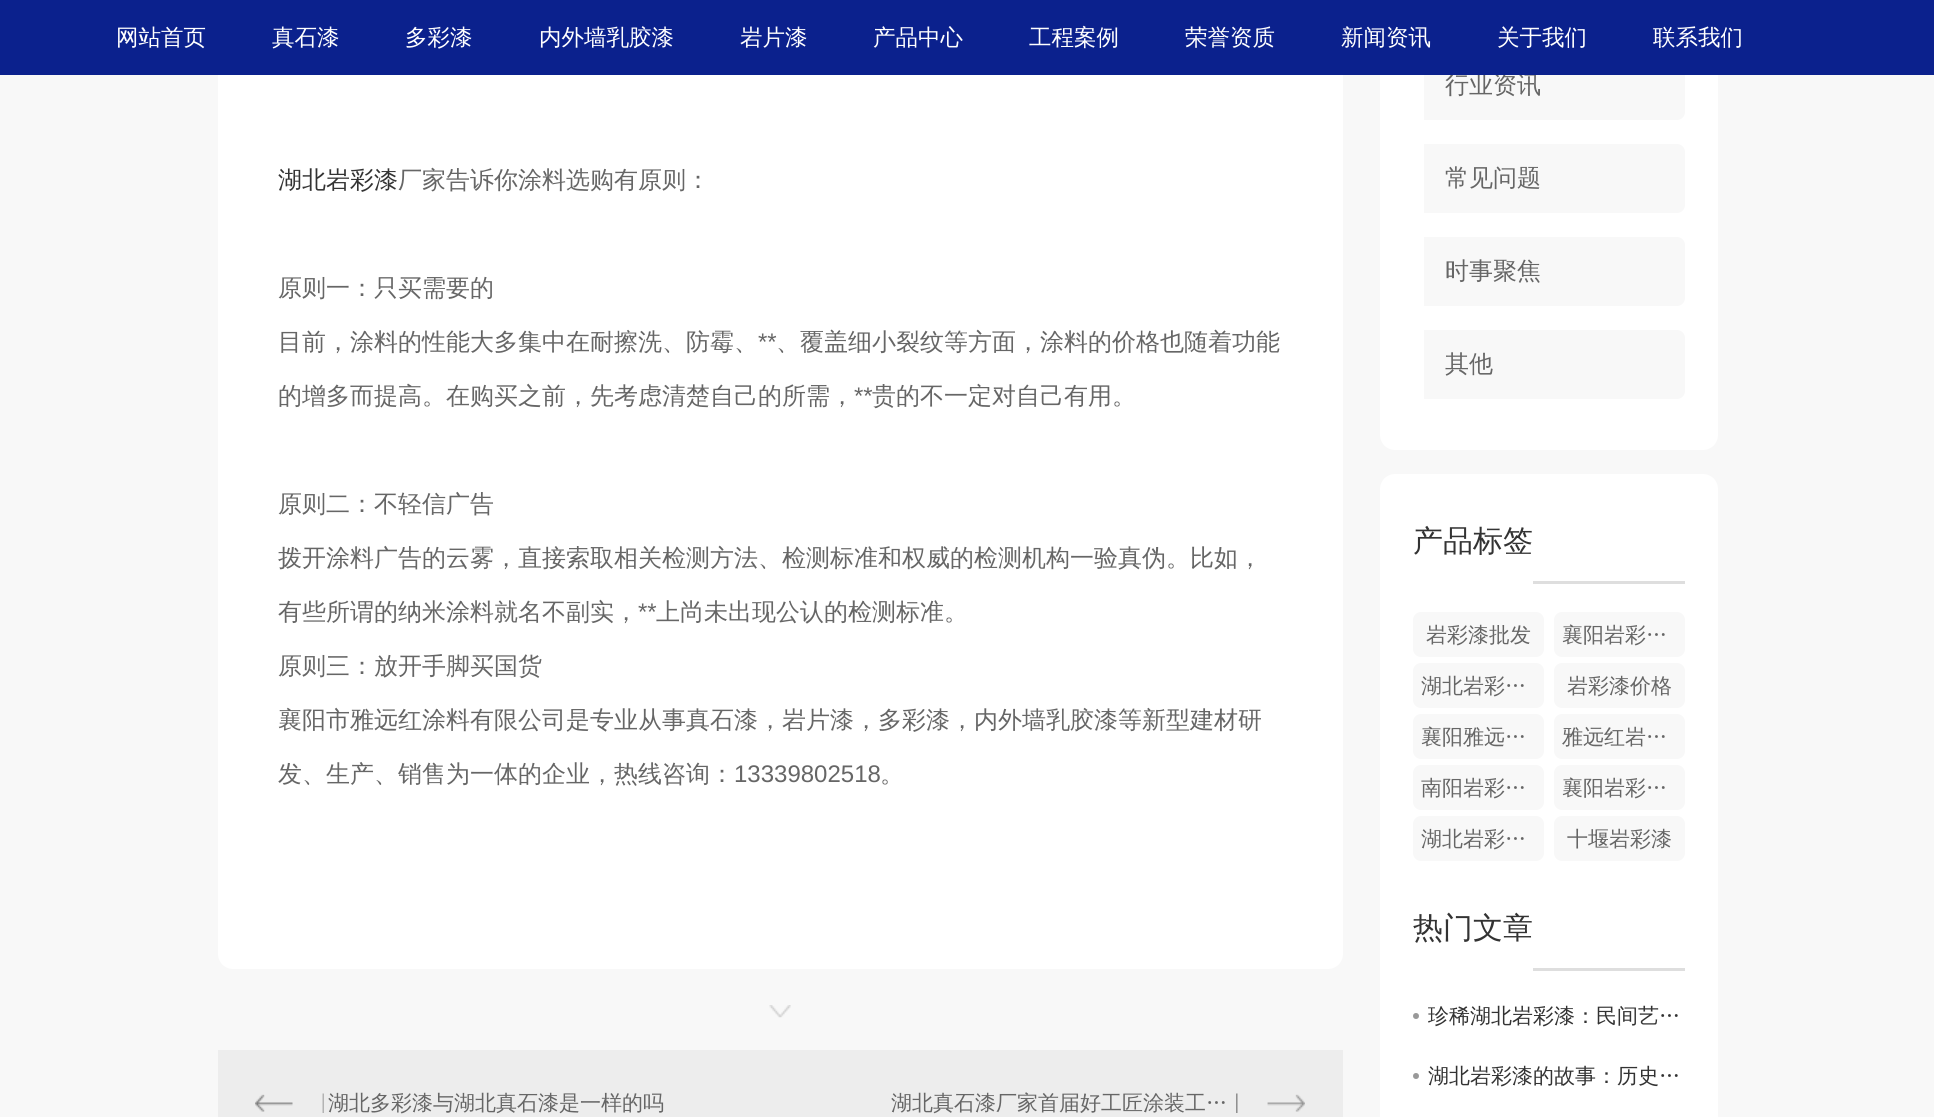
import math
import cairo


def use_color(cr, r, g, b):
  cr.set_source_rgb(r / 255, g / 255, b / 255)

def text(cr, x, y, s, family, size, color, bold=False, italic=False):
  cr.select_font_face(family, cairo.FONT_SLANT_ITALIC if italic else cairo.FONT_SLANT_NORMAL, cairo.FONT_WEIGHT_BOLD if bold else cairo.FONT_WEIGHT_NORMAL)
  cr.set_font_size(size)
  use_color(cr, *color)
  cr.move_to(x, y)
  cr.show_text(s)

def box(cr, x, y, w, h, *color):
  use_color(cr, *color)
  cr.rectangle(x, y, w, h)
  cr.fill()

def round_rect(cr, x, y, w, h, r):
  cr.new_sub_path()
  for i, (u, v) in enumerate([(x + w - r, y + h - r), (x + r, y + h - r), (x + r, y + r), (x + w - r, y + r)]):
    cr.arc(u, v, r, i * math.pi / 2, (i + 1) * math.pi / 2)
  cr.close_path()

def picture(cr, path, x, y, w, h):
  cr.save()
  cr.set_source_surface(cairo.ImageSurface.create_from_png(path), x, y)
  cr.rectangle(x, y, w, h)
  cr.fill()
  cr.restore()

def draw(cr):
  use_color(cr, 248, 248, 248)
  cr.paint()
  use_color(cr, 255, 255, 255)
  round_rect(cr, 218, -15, 1125, 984, 15)
  cr.fill()
  picture(cr, "img_01.png", 769, 1005, 22, 13)
  box(cr, 218, 1050, 1125, 67, 237, 237, 237)
  picture(cr, "img_02.png", 255, 1093, 69, 20)
  picture(cr, "img_03.png", 1236, 1093, 69, 20)
  use_color(cr, 255, 255, 255)
  round_rect(cr, 1380, -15, 338, 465, 15)
  cr.fill()
  use_color(cr, 248, 248, 248)
  cr.new_path()
  cr.move_to(1424, 51)
  cr.line_to(1677, 51)
  cr.curve_to(1681.5, 51, 1685, 54.5, 1685, 59)
  cr.line_to(1685, 112)
  cr.curve_to(1685, 116.5, 1681.5, 120, 1677, 120)
  cr.line_to(1424, 120)
  cr.close_path()
  cr.fill()
  cr.new_path()
  cr.move_to(1424, 144)
  cr.line_to(1677, 144)
  cr.curve_to(1681.5, 144, 1685, 147.5, 1685, 152)
  cr.line_to(1685, 205)
  cr.curve_to(1685, 209.5, 1681.5, 213, 1677, 213)
  cr.line_to(1424, 213)
  cr.close_path()
  cr.fill()
  cr.new_path()
  cr.move_to(1424, 237)
  cr.line_to(1677, 237)
  cr.curve_to(1681.5, 237, 1685, 240.5, 1685, 245)
  cr.line_to(1685, 298)
  cr.curve_to(1685, 302.5, 1681.5, 306, 1677, 306)
  cr.line_to(1424, 306)
  cr.close_path()
  cr.fill()
  cr.new_path()
  cr.move_to(1424, 330)
  cr.line_to(1677, 330)
  cr.curve_to(1681.5, 330, 1685, 333.5, 1685, 338)
  cr.line_to(1685, 391)
  cr.curve_to(1685, 395.5, 1681.5, 399, 1677, 399)
  cr.line_to(1424, 399)
  cr.close_path()
  cr.fill()
  use_color(cr, 255, 255, 255)
  round_rect(cr, 1380, 474, 338, 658, 15)
  cr.fill()
  box(cr, 1533, 581, 152, 3, 222, 222, 222)
  use_color(cr, 248, 248, 248)
  round_rect(cr, 1413, 612, 131, 45, 8)
  cr.fill()
  round_rect(cr, 1554, 612, 131, 45, 8)
  cr.fill()
  round_rect(cr, 1413, 663, 131, 45, 8)
  cr.fill()
  round_rect(cr, 1554, 663, 131, 45, 8)
  cr.fill()
  round_rect(cr, 1413, 714, 131, 45, 8)
  cr.fill()
  round_rect(cr, 1554, 714, 131, 45, 8)
  cr.fill()
  round_rect(cr, 1413, 765, 131, 45, 8)
  cr.fill()
  round_rect(cr, 1554, 765, 131, 45, 8)
  cr.fill()
  round_rect(cr, 1413, 816, 131, 45, 8)
  cr.fill()
  round_rect(cr, 1554, 816, 131, 45, 8)
  cr.fill()
  box(cr, 1533, 968, 152, 3, 222, 222, 222)
  use_color(cr, 153, 153, 153)
  cr.arc(1416, 1016, 3, 0, 2 * math.pi)
  cr.fill()
  cr.arc(1416, 1076, 3, 0, 2 * math.pi)
  cr.fill()
  text(cr, 278, 188, "湖北岩彩漆", "WenQuanYi Zen Hei Medium", 24, (51, 51, 51))
  text(cr, 398, 188, "厂家告诉你涂料选购有原则：", "WenQuanYi Zen Hei Medium", 24, (102, 102, 102))
  text(cr, 278, 296, "原则一：只买需要的", "WenQuanYi Zen Hei Medium", 24, (102, 102, 102))
  text(cr, 278, 350, "目前，涂料的性能大多集中在耐擦洗、防霉、", "WenQuanYi Zen Hei Medium", 24, (102, 102, 102))
  text(cr, 758, 350, "**", "Liberation Sans", 24, (102, 102, 102))
  text(cr, 776, 350, "、覆盖细小裂纹等方面，涂料的价格也随着功能", "WenQuanYi Zen Hei Medium", 24, (102, 102, 102))
  text(cr, 278, 404, "的增多而提高。在购买之前，先考虑清楚自己的所需，", "WenQuanYi Zen Hei Medium", 24, (102, 102, 102))
  text(cr, 854, 404, "**", "Liberation Sans", 24, (102, 102, 102))
  text(cr, 872, 404, "贵的不一定对自己有用。", "WenQuanYi Zen Hei Medium", 24, (102, 102, 102))
  text(cr, 278, 512, "原则二：不轻信广告", "WenQuanYi Zen Hei Medium", 24, (102, 102, 102))
  text(cr, 278, 566, "拨开涂料广告的云雾，直接索取相关检测方法、检测标准和权威的检测机构一验真伪。比如，", "WenQuanYi Zen Hei Medium", 24, (102, 102, 102))
  text(cr, 278, 620, "有些所谓的纳米涂料就名不副实，", "WenQuanYi Zen Hei Medium", 24, (102, 102, 102))
  text(cr, 638, 620, "**", "Liberation Sans", 24, (102, 102, 102))
  text(cr, 656, 620, "上尚未出现公认的检测标准。", "WenQuanYi Zen Hei Medium", 24, (102, 102, 102))
  text(cr, 278, 674, "原则三：放开手脚买国货", "WenQuanYi Zen Hei Medium", 24, (102, 102, 102))
  text(cr, 278, 728, "襄阳市雅远红涂料有限公司是专业从事真石漆，岩片漆，多彩漆，内外墙乳胶漆等新型建材研", "WenQuanYi Zen Hei Medium", 24, (102, 102, 102))
  text(cr, 278, 782, "发、生产、销售为一体的企业，热线咨询：", "WenQuanYi Zen Hei Medium", 24, (102, 102, 102))
  text(cr, 734, 782, "13339802518", "Liberation Sans", 24, (102, 102, 102))
  text(cr, 880, 782, "。", "WenQuanYi Zen Hei Medium", 24, (102, 102, 102))
  text(cr, 328, 1110, "湖北多彩漆与湖北真石漆是一样的吗", "WenQuanYi Zen Hei Medium", 21, (102, 102, 102))
  text(cr, 891, 1110, "湖北真石漆厂家首届好工匠涂装工…", "WenQuanYi Zen Hei Medium", 21, (102, 102, 102))
  text(cr, 1445, 93, "行业资讯", "WenQuanYi Zen Hei Medium", 24, (102, 102, 102))
  box(cr, 0, 0, 1934, 75, 11, 33, 141)
  text(cr, 1653, 45, "联系我们", "WenQuanYi Zen Hei Medium", 22.5, (255, 255, 255))
  text(cr, 1497, 45, "关于我们", "WenQuanYi Zen Hei Medium", 22.5, (255, 255, 255))
  text(cr, 1341, 45, "新闻资讯", "WenQuanYi Zen Hei Medium", 22.5, (255, 255, 255))
  text(cr, 1185, 45, "荣誉资质", "WenQuanYi Zen Hei Medium", 22.5, (255, 255, 255))
  text(cr, 1029, 45, "工程案例", "WenQuanYi Zen Hei Medium", 22.5, (255, 255, 255))
  text(cr, 873, 45, "产品中心", "WenQuanYi Zen Hei Medium", 22.5, (255, 255, 255))
  text(cr, 740, 45, "岩片漆", "WenQuanYi Zen Hei Medium", 22.5, (255, 255, 255))
  text(cr, 539, 45, "内外墙乳胶漆", "WenQuanYi Zen Hei Medium", 22.5, (255, 255, 255))
  text(cr, 405, 45, "多彩漆", "WenQuanYi Zen Hei Medium", 22.5, (255, 255, 255))
  text(cr, 272, 45, "真石漆", "WenQuanYi Zen Hei Medium", 22.5, (255, 255, 255))
  text(cr, 116, 45, "网站首页", "WenQuanYi Zen Hei Medium", 22.5, (255, 255, 255))
  text(cr, 1445, 186, "常见问题", "WenQuanYi Zen Hei Medium", 24, (102, 102, 102))
  text(cr, 1445, 279, "时事聚焦", "WenQuanYi Zen Hei Medium", 24, (102, 102, 102))
  text(cr, 1445, 372, "其他", "WenQuanYi Zen Hei Medium", 24, (102, 102, 102))
  text(cr, 1413, 551, "产品标签", "WenQuanYi Zen Hei Medium", 30, (51, 51, 51))
  text(cr, 1426, 642, "岩彩漆批发", "WenQuanYi Zen Hei Medium", 21, (102, 102, 102))
  text(cr, 1562, 642, "襄阳岩彩…", "WenQuanYi Zen Hei Medium", 21, (102, 102, 102))
  text(cr, 1421, 693, "湖北岩彩…", "WenQuanYi Zen Hei Medium", 21, (102, 102, 102))
  text(cr, 1567, 693, "岩彩漆价格", "WenQuanYi Zen Hei Medium", 21, (102, 102, 102))
  text(cr, 1421, 744, "襄阳雅远…", "WenQuanYi Zen Hei Medium", 21, (102, 102, 102))
  text(cr, 1562, 744, "雅远红岩…", "WenQuanYi Zen Hei Medium", 21, (102, 102, 102))
  text(cr, 1421, 795, "南阳岩彩…", "WenQuanYi Zen Hei Medium", 21, (102, 102, 102))
  text(cr, 1562, 795, "襄阳岩彩…", "WenQuanYi Zen Hei Medium", 21, (102, 102, 102))
  text(cr, 1421, 846, "湖北岩彩…", "WenQuanYi Zen Hei Medium", 21, (102, 102, 102))
  text(cr, 1567, 846, "十堰岩彩漆", "WenQuanYi Zen Hei Medium", 21, (102, 102, 102))
  text(cr, 1413, 938, "热门文章", "WenQuanYi Zen Hei Medium", 30, (51, 51, 51))
  text(cr, 1428, 1023, "珍稀湖北岩彩漆：民间艺…", "WenQuanYi Zen Hei Medium", 21, (51, 51, 51))
  text(cr, 1428, 1083, "湖北岩彩漆的故事：历史…", "WenQuanYi Zen Hei Medium", 21, (51, 51, 51))


surface = cairo.ImageSurface(cairo.FORMAT_RGB24, 1934, 1117)
cr = cairo.Context(surface)
options = cairo.FontOptions()
options.set_hint_metrics(cairo.HINT_METRICS_OFF)
options.set_hint_style(cairo.HINT_STYLE_NONE)
cr.set_font_options(options)
cr.set_miter_limit(4)
draw(cr)
surface.write_to_png("out.png")
